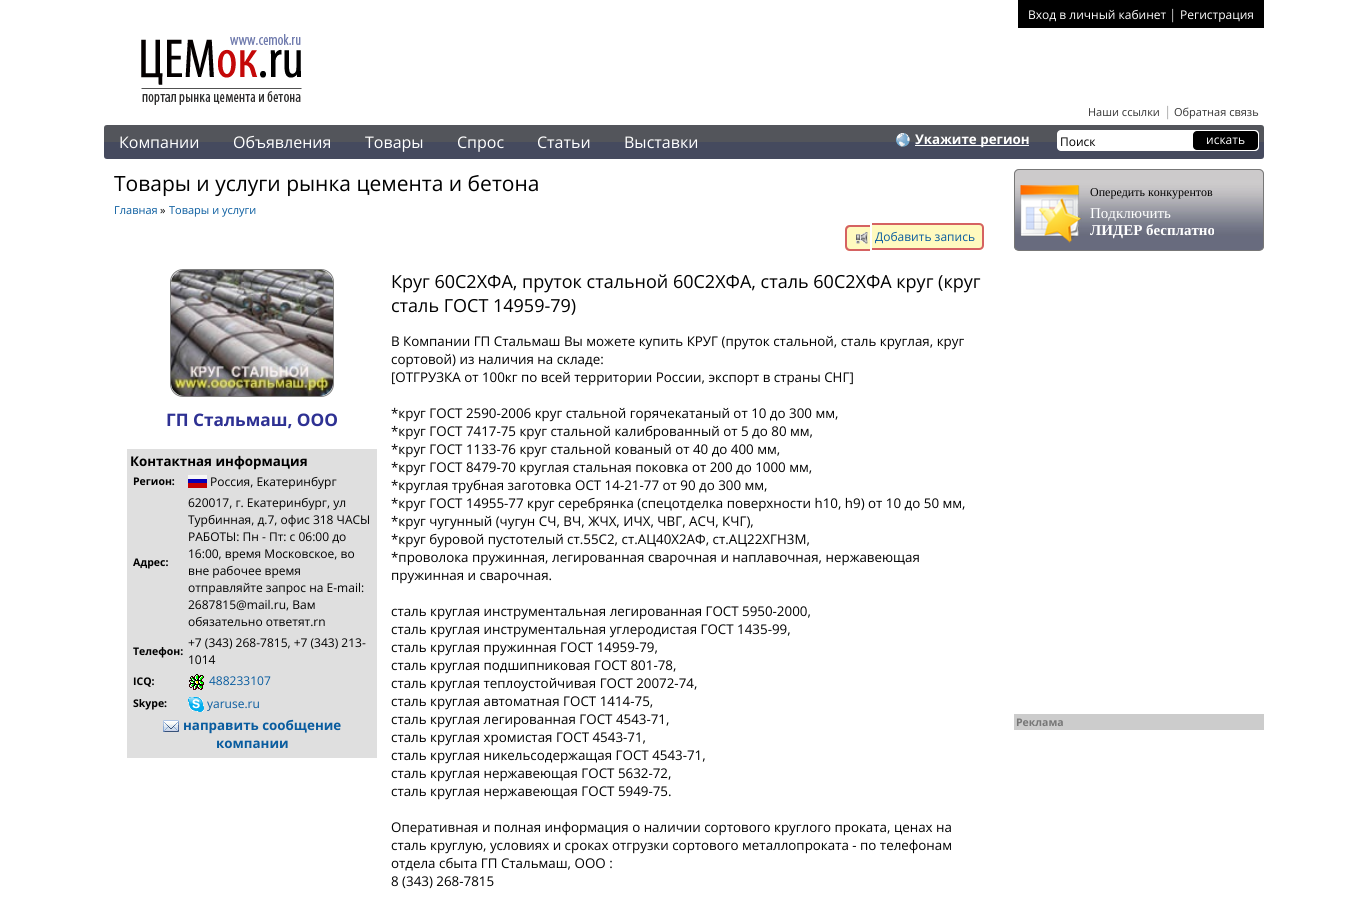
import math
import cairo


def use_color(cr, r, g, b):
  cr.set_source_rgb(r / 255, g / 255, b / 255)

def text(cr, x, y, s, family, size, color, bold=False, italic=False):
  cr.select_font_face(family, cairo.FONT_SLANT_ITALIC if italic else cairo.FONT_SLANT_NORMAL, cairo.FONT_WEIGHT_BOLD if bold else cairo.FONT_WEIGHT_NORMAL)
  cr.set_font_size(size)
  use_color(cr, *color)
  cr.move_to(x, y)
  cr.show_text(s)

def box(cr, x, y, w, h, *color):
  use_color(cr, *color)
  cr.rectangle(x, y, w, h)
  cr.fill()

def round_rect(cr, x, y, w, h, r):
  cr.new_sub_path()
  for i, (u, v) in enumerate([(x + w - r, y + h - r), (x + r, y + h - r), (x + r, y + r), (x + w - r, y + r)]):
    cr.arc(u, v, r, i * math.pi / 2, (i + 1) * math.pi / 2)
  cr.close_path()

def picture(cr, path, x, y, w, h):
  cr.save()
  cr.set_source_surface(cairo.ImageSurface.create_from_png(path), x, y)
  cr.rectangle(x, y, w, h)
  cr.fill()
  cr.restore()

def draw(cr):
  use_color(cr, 255, 255, 255)
  cr.paint()
  box(cr, 1018, 0, 246, 28, 0, 0, 0)
  picture(cr, "img_01.png", 141, 34, 161, 71)
  picture(cr, "img_02.png", 104, 125, 1160, 34)
  picture(cr, "img_03.png", 896, 133, 14, 14)
  box(cr, 915, 145, 114, 1, 255, 255, 255)
  round_rect(cr, 1057, 130, 202, 21, 4)
  cr.fill()
  use_color(cr, 0, 0, 0)
  round_rect(cr, 1193, 131, 65, 19, 4)
  cr.fill()
  use_color(cr, 255, 250, 191)
  cr.new_path()
  cr.move_to(850, 225)
  cr.line_to(870, 225)
  cr.line_to(870, 251)
  cr.line_to(850, 251)
  cr.curve_to(847, 251, 845, 249, 845, 246)
  cr.line_to(845, 230)
  cr.curve_to(845, 227, 847, 225, 850, 225)
  cr.close_path()
  cr.fill()
  use_color(cr, 213, 98, 98)
  cr.set_fill_rule(cairo.FILL_RULE_EVEN_ODD)
  cr.new_path()
  cr.move_to(850, 225)
  cr.line_to(870, 225)
  cr.line_to(870, 251)
  cr.line_to(850, 251)
  cr.curve_to(847, 251, 845, 249, 845, 246)
  cr.line_to(845, 230)
  cr.curve_to(845, 227, 847, 225, 850, 225)
  cr.close_path()
  cr.move_to(850, 227)
  cr.line_to(870, 227)
  cr.line_to(870, 249)
  cr.line_to(850, 249)
  cr.curve_to(848.5, 249, 847, 247.5, 847, 246)
  cr.line_to(847, 230)
  cr.curve_to(847, 228.5, 848.5, 227, 850, 227)
  cr.close_path()
  cr.fill()
  picture(cr, "img_04.png", 856, 232, 12, 12)
  use_color(cr, 255, 250, 191)
  cr.new_path()
  cr.move_to(872, 223)
  cr.line_to(979, 223)
  cr.curve_to(982, 223, 984, 225, 984, 228)
  cr.line_to(984, 245)
  cr.curve_to(984, 248, 982, 250, 979, 250)
  cr.line_to(872, 250)
  cr.close_path()
  cr.fill()
  use_color(cr, 213, 98, 98)
  cr.new_path()
  cr.move_to(872, 223)
  cr.line_to(979, 223)
  cr.curve_to(982, 223, 984, 225, 984, 228)
  cr.line_to(984, 245)
  cr.curve_to(984, 248, 982, 250, 979, 250)
  cr.line_to(872, 250)
  cr.close_path()
  cr.move_to(872, 225)
  cr.line_to(979, 225)
  cr.curve_to(981, 225, 982, 226, 982, 228)
  cr.line_to(982, 245)
  cr.curve_to(982, 247, 981, 248, 979, 248)
  cr.line_to(872, 248)
  cr.close_path()
  cr.fill()
  round_rect(cr, 170.5, 269.5, 163, 127, 12.5)
  use_color(cr, 128, 128, 128)
  cr.set_line_width(1)
  cr.stroke()
  picture(cr, "img_05.png", 171, 270, 162, 126)
  box(cr, 127, 449, 250, 309, 223, 223, 223)
  picture(cr, "img_06.png", 188, 475, 19, 13)
  picture(cr, "img_07.png", 189, 674, 15, 16)
  picture(cr, "img_08.png", 188, 697, 16, 15)
  picture(cr, "img_09.png", 163, 720, 16, 12)
  picture(cr, "img_10.png", 1014, 169, 250, 81)
  round_rect(cr, 1014.5, 169.5, 249, 81, 4.5)
  use_color(cr, 119, 119, 119)
  cr.stroke()
  picture(cr, "img_11.png", 1020, 185, 62, 58)
  box(cr, 1014, 714, 250, 16, 204, 204, 204)
  text(cr, 1028, 19, "Вход в личный кабинет", "Open Sans", 12, (255, 255, 255))
  text(cr, 1169, 19, "|", "Open Sans", 13.35, (204, 204, 204))
  text(cr, 1180, 19, "Регистрация", "Open Sans", 12, (255, 255, 255))
  text(cr, 1088, 116, "Наши ссылки", "Open Sans", 11, (51, 51, 51))
  text(cr, 1164, 116, "|", "Open Sans", 13.35, (170, 170, 170))
  text(cr, 1174, 116, "Обратная связь", "Open Sans", 11, (51, 51, 51))
  text(cr, 119, 148, "Компании", "Open Sans", 16, (255, 255, 255))
  text(cr, 233, 148, "Объявления", "Open Sans", 16, (255, 255, 255))
  text(cr, 365, 148, "Товары", "Open Sans", 16, (255, 255, 255))
  text(cr, 457, 148, "Спрос", "Open Sans", 16, (255, 255, 255))
  text(cr, 537, 148, "Статьи", "Open Sans", 16, (255, 255, 255))
  text(cr, 624, 148, "Выставки", "Open Sans", 16, (255, 255, 255))
  text(cr, 915, 144, "Укажите регион", "Open Sans", 13.35, (255, 255, 255), bold=True)
  text(cr, 1060, 146, "Поиск", "Open Sans", 12, (0, 0, 0))
  text(cr, 1206, 144, "искать", "Open Sans", 12, (255, 255, 255))
  text(cr, 114, 191, "Товары и услуги рынка цемента и бетона", "Open Sans", 21, (0, 0, 0))
  text(cr, 114, 214, "Главная", "Open Sans", 11, (9, 92, 159))
  text(cr, 160, 214, "»", "Open Sans", 11, (0, 0, 0))
  text(cr, 169, 214, "Товары и услуги", "Open Sans", 11, (9, 92, 159))
  text(cr, 875, 241, "Добавить запись", "Open Sans", 12, (9, 92, 159))
  text(cr, 166, 426, "ГП Стальмаш, ООО", "Open Sans", 17.25, (46, 49, 147), bold=True)
  text(cr, 130, 466, "Контактная информация", "Open Sans", 13.35, (0, 0, 0), bold=True)
  text(cr, 133, 485, "Регион:", "Open Sans", 10.5, (0, 0, 0), bold=True)
  text(cr, 210, 486, "Россия, Екатеринбург", "Open Sans", 12, (0, 0, 0))
  text(cr, 133, 566, "Адрес:", "Open Sans", 10.5, (0, 0, 0), bold=True)
  text(cr, 188, 507, "620017, г. Екатеринбург, ул", "Open Sans", 12, (0, 0, 0))
  text(cr, 188, 524, "Турбинная, д.7, офис 318 ЧАСЫ", "Open Sans", 12, (0, 0, 0))
  text(cr, 188, 541, "РАБОТЫ: Пн - Пт: с 06:00 до", "Open Sans", 12, (0, 0, 0))
  text(cr, 188, 558, "16:00, время Московское, во", "Open Sans", 12, (0, 0, 0))
  text(cr, 188, 575, "вне рабочее время", "Open Sans", 12, (0, 0, 0))
  text(cr, 188, 592, "отправляйте запрос на E-mail:", "Open Sans", 12, (0, 0, 0))
  text(cr, 188, 609, "2687815@mail.ru, Вам", "Open Sans", 12, (0, 0, 0))
  text(cr, 188, 626, "обязательно ответят.rn", "Open Sans", 12, (0, 0, 0))
  text(cr, 133, 655, "Телефон:", "Open Sans", 10.5, (0, 0, 0), bold=True)
  text(cr, 188, 647, "+7 (343) 268-7815, +7 (343) 213-", "Open Sans", 12, (0, 0, 0))
  text(cr, 188, 664, "1014", "Open Sans", 12, (0, 0, 0))
  text(cr, 133, 685, "ICQ:", "Open Sans", 10.5, (0, 0, 0), bold=True)
  text(cr, 209, 685, "488233107", "Open Sans", 12, (9, 92, 159))
  text(cr, 133, 707, "Skype:", "Open Sans", 10.5, (0, 0, 0), bold=True)
  text(cr, 207, 708, "yaruse.ru", "Open Sans", 12, (9, 92, 159))
  text(cr, 183, 730, "направить сообщение", "Open Sans", 13.35, (9, 92, 159), bold=True)
  text(cr, 216, 748, "компании", "Open Sans", 13.35, (9, 92, 159), bold=True)
  text(cr, 391, 288, "Круг 60С2ХФА, пруток стальной 60С2ХФА, сталь 60С2ХФА круг (круг", "Open Sans", 18, (0, 0, 0))
  text(cr, 391, 312, "сталь ГОСТ 14959-79)", "Open Sans", 18, (0, 0, 0))
  text(cr, 391, 346, "В Компании ГП Стальмаш Вы можете купить КРУГ (пруток стальной, сталь круглая, круг", "Open Sans", 13.35, (0, 0, 0))
  text(cr, 391, 364, "сортовой) из наличия на складе:", "Open Sans", 13.35, (0, 0, 0))
  text(cr, 391, 382, "[ОТГРУЗКА от 100кг по всей территории России, экспорт в страны СНГ]", "Open Sans", 13.35, (0, 0, 0))
  text(cr, 391, 418, "*круг ГОСТ 2590-2006 круг стальной горячекатаный от 10 до 300 мм,", "Open Sans", 13.35, (0, 0, 0))
  text(cr, 391, 436, "*круг ГОСТ 7417-75 круг стальной калиброванный от 5 до 80 мм,", "Open Sans", 13.35, (0, 0, 0))
  text(cr, 391, 454, "*круг ГОСТ 1133-76 круг стальной кованый от 40 до 400 мм,", "Open Sans", 13.35, (0, 0, 0))
  text(cr, 391, 472, "*круг ГОСТ 8479-70 круглая стальная поковка от 200 до 1000 мм,", "Open Sans", 13.35, (0, 0, 0))
  text(cr, 391, 490, "*круглая трубная заготовка ОСТ 14-21-77 от 90 до 300 мм,", "Open Sans", 13.35, (0, 0, 0))
  text(cr, 391, 508, "*круг ГОСТ 14955-77 круг серебрянка (спецотделка поверхности h10, h9) от 10 до 50 мм,", "Open Sans", 13.35, (0, 0, 0))
  text(cr, 391, 526, "*круг чугунный (чугун СЧ, ВЧ, ЖЧХ, ИЧХ, ЧВГ, АСЧ, КЧГ),", "Open Sans", 13.35, (0, 0, 0))
  text(cr, 391, 544, "*круг буровой пустотелый ст.55С2, ст.АЦ40Х2АФ, ст.АЦ22ХГН3М,", "Open Sans", 13.35, (0, 0, 0))
  text(cr, 391, 562, "*проволока пружинная, легированная сварочная и наплавочная, нержавеющая", "Open Sans", 13.35, (0, 0, 0))
  text(cr, 391, 580, "пружинная и сварочная.", "Open Sans", 13.35, (0, 0, 0))
  text(cr, 391, 616, "сталь круглая инструментальная легированная ГОСТ 5950-2000,", "Open Sans", 13.35, (0, 0, 0))
  text(cr, 391, 634, "сталь круглая инструментальная углеродистая ГОСТ 1435-99,", "Open Sans", 13.35, (0, 0, 0))
  text(cr, 391, 652, "сталь круглая пружинная ГОСТ 14959-79,", "Open Sans", 13.35, (0, 0, 0))
  text(cr, 391, 670, "сталь круглая подшипниковая ГОСТ 801-78,", "Open Sans", 13.35, (0, 0, 0))
  text(cr, 391, 688, "сталь круглая теплоустойчивая ГОСТ 20072-74,", "Open Sans", 13.35, (0, 0, 0))
  text(cr, 391, 706, "сталь круглая автоматная ГОСТ 1414-75,", "Open Sans", 13.35, (0, 0, 0))
  text(cr, 391, 724, "сталь круглая легированная ГОСТ 4543-71,", "Open Sans", 13.35, (0, 0, 0))
  text(cr, 391, 742, "сталь круглая хромистая ГОСТ 4543-71,", "Open Sans", 13.35, (0, 0, 0))
  text(cr, 391, 760, "сталь круглая никельсодержащая ГОСТ 4543-71,", "Open Sans", 13.35, (0, 0, 0))
  text(cr, 391, 778, "сталь круглая нержавеющая ГОСТ 5632-72,", "Open Sans", 13.35, (0, 0, 0))
  text(cr, 391, 796, "сталь круглая нержавеющая ГОСТ 5949-75.", "Open Sans", 13.35, (0, 0, 0))
  text(cr, 391, 832, "Оперативная и полная информация о наличии сортового круглого проката, ценах на", "Open Sans", 13.35, (0, 0, 0))
  text(cr, 391, 850, "сталь круглую, условиях и сроках отгрузки сортового металлопроката - по телефонам", "Open Sans", 13.35, (0, 0, 0))
  text(cr, 391, 868, "отдела сбыта ГП Стальмаш, ООО :", "Open Sans", 13.35, (0, 0, 0))
  text(cr, 391, 886, "8 (343) 268-7815", "Open Sans", 13.35, (0, 0, 0))
  text(cr, 1090, 196, "Опередить конкурентов", "Liberation Serif", 12, (0, 0, 0))
  text(cr, 1090, 218, "Подключить", "Liberation Serif", 15, (255, 255, 255))
  text(cr, 1090, 235, "ЛИДЕР бесплатно", "Liberation Serif", 15, (255, 255, 255), bold=True)
  text(cr, 1016, 726, "Реклама", "Open Sans", 10.5, (119, 119, 119), bold=True)


surface = cairo.ImageSurface(cairo.FORMAT_RGB24, 1368, 915)
cr = cairo.Context(surface)
options = cairo.FontOptions()
options.set_hint_metrics(cairo.HINT_METRICS_OFF)
options.set_hint_style(cairo.HINT_STYLE_NONE)
cr.set_font_options(options)
cr.set_miter_limit(4)
draw(cr)
surface.write_to_png("out.png")
